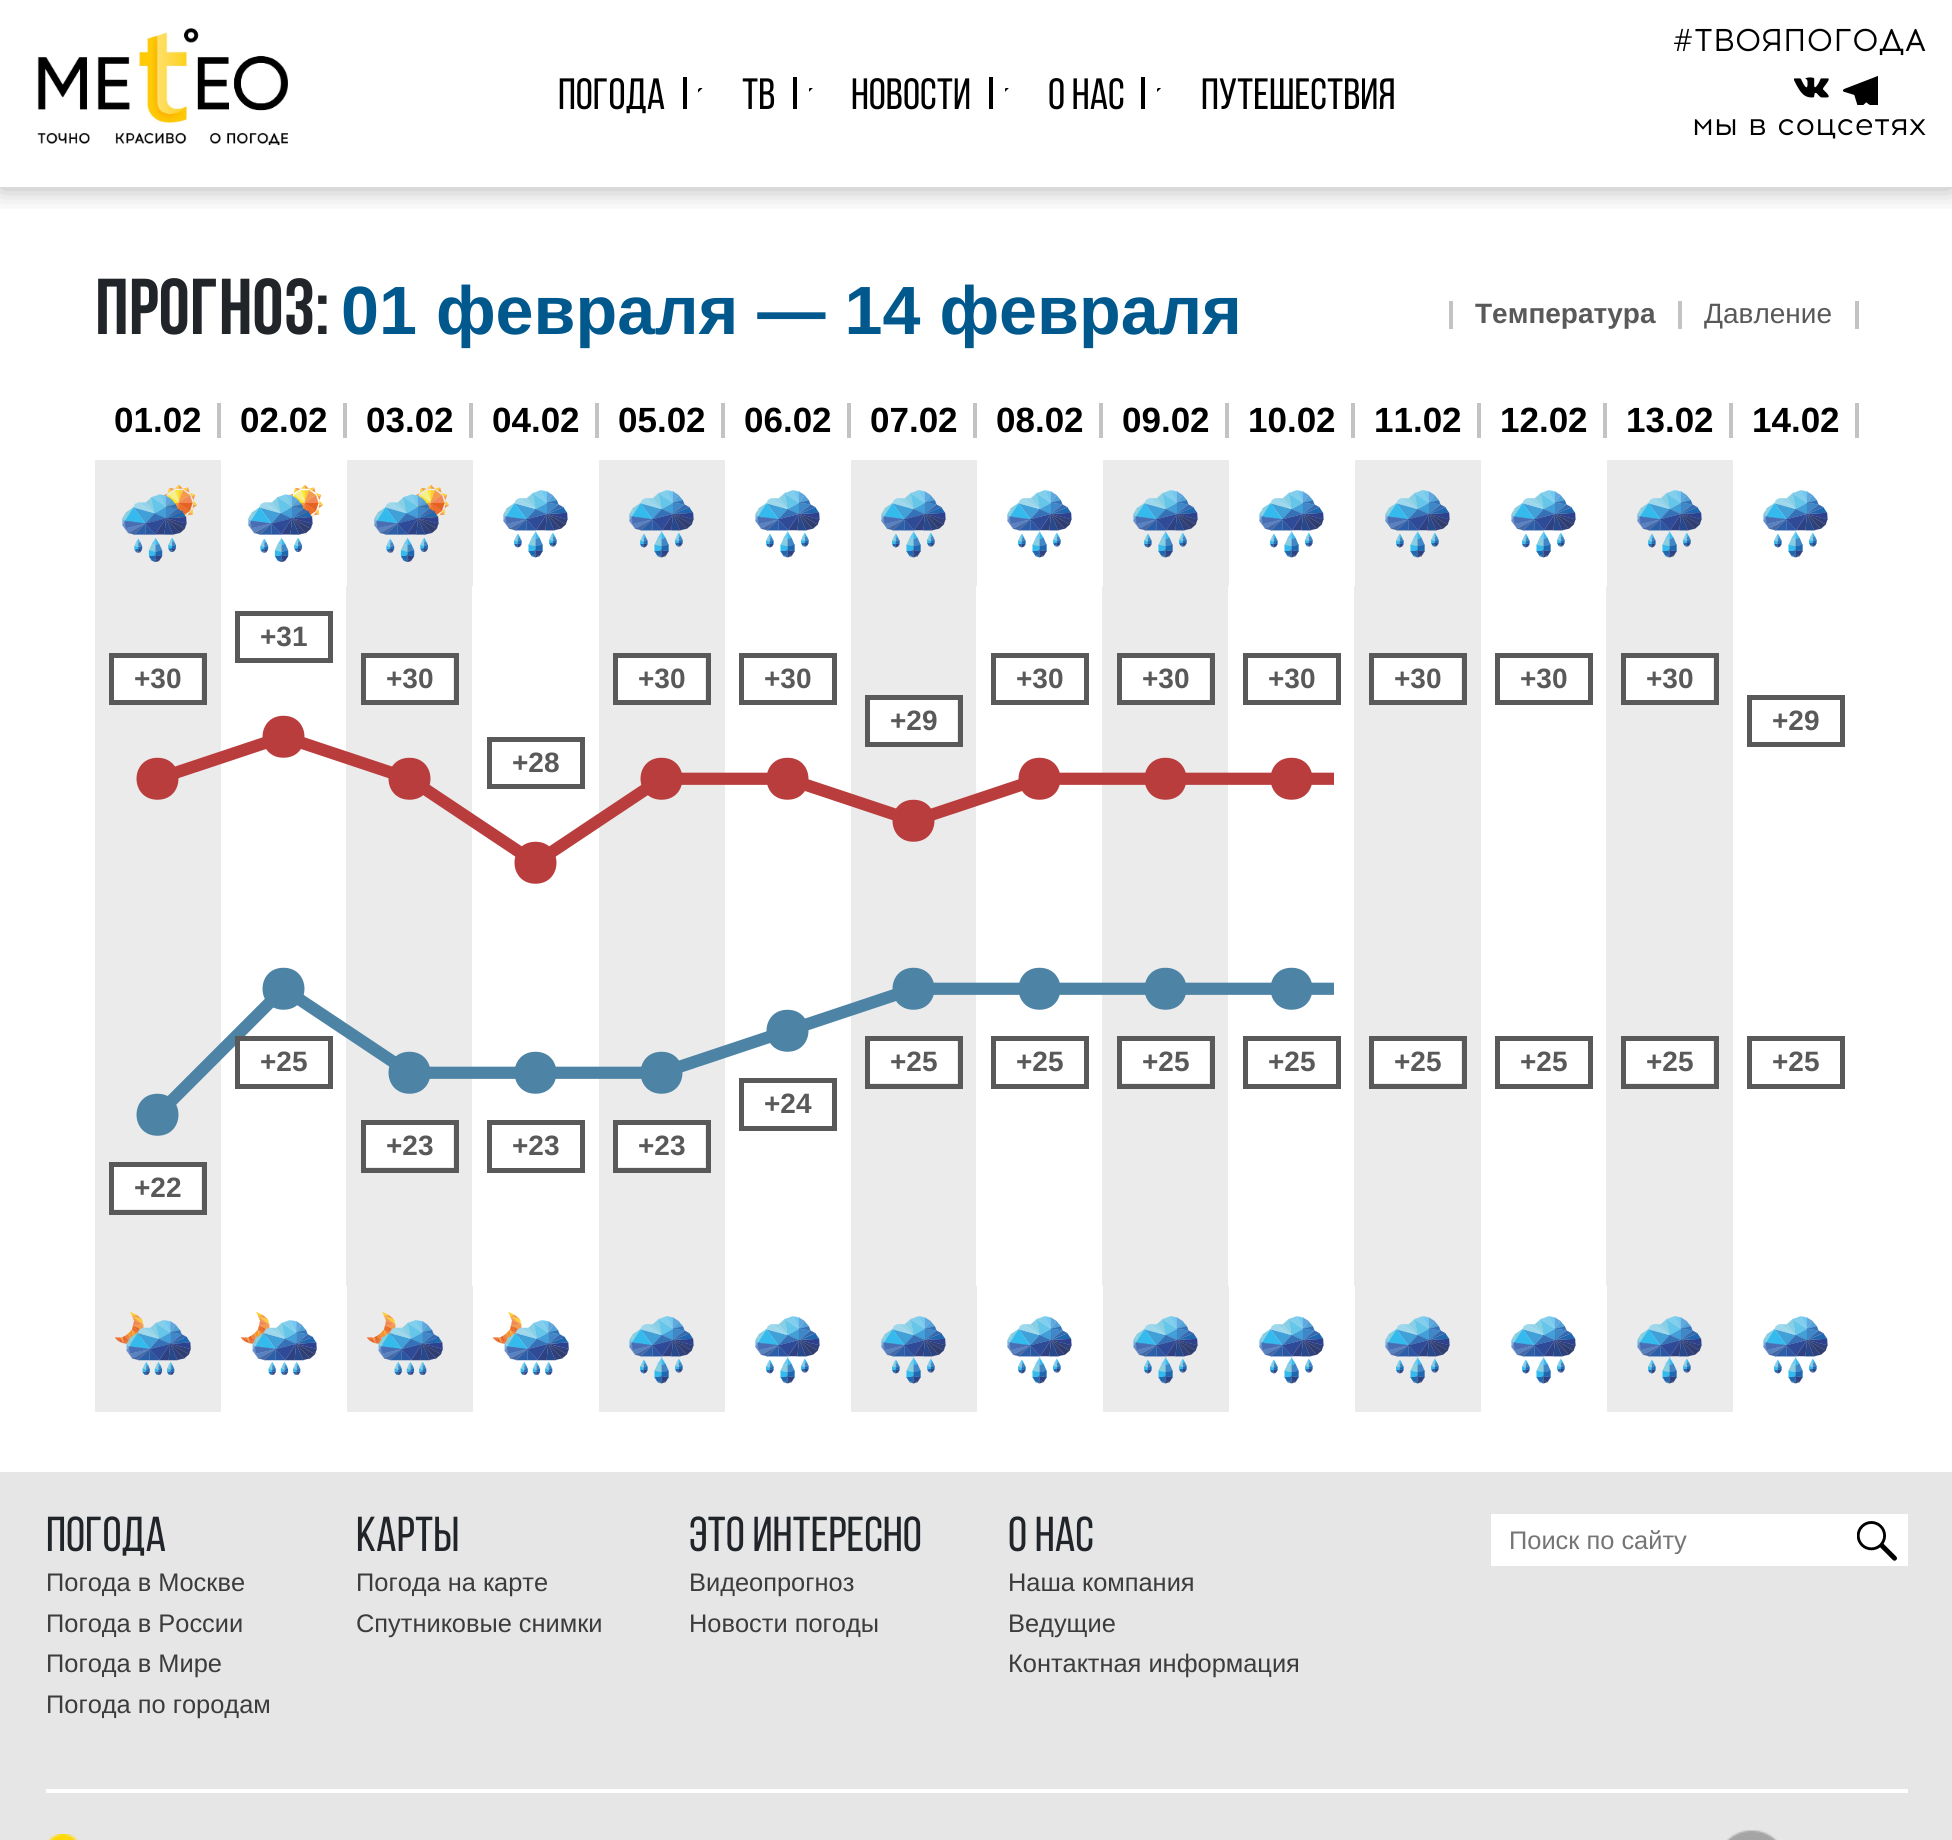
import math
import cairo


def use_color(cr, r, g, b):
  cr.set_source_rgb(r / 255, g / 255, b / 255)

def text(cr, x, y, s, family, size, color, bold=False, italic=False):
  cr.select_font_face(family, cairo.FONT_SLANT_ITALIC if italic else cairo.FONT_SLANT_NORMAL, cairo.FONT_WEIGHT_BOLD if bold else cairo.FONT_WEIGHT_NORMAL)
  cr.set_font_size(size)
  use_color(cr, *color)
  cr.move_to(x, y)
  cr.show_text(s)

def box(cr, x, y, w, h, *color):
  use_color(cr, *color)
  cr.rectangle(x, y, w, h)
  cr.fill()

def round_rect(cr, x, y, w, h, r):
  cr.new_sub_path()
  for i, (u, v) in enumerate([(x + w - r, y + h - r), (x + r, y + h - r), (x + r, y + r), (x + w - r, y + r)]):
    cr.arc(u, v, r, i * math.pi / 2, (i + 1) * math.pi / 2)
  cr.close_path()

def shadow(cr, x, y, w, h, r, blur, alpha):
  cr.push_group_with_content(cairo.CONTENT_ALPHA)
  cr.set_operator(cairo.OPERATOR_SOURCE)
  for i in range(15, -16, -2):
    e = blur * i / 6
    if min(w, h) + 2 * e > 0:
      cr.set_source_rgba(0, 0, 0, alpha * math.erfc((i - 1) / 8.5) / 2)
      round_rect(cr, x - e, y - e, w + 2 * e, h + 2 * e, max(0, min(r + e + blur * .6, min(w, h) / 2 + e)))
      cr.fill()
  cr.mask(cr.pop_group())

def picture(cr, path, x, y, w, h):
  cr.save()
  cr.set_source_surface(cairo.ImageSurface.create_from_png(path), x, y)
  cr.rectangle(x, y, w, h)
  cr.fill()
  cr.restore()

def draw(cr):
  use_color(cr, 255, 255, 255)
  cr.paint()
  cr.save()
  cr.rectangle(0, 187, 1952, 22)
  cr.clip()
  use_color(cr, 0, 0, 0)
  shadow(cr, 0, 2, 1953, 187, 0, 13, 0.3)
  cr.restore()
  picture(cr, "img_01.png", 37, 28, 251, 118)
  box(cr, 683, 77, 4, 32, 0, 0, 0)
  picture(cr, "img_02.png", 698, 88, 5, 5)
  box(cr, 793, 77, 4, 32, 0, 0, 0)
  picture(cr, "img_03.png", 809, 88, 4, 4)
  box(cr, 989, 77, 4, 32, 0, 0, 0)
  picture(cr, "img_03.png", 1005, 88, 4, 4)
  box(cr, 1141, 77, 4, 32, 0, 0, 0)
  picture(cr, "img_04.png", 1157, 88, 4, 4)
  picture(cr, "img_05.png", 1794, 77, 35, 21)
  picture(cr, "img_06.png", 1843, 76, 35, 29)
  box(cr, 1449, 301, 4, 28, 195, 195, 196)
  box(cr, 1855, 301, 4, 28, 195, 195, 196)
  box(cr, 1678, 301, 4, 28, 195, 195, 196)
  box(cr, 217, 403, 4, 35, 195, 195, 196)
  box(cr, 343, 403, 4, 35, 195, 195, 196)
  box(cr, 469, 403, 4, 35, 195, 195, 196)
  box(cr, 595, 403, 4, 35, 195, 195, 196)
  box(cr, 721, 403, 4, 35, 195, 195, 196)
  box(cr, 847, 403, 4, 35, 195, 195, 196)
  box(cr, 973, 403, 4, 35, 195, 195, 196)
  box(cr, 1099, 403, 4, 35, 195, 195, 196)
  box(cr, 1225, 403, 4, 35, 195, 195, 196)
  box(cr, 1351, 403, 4, 35, 195, 195, 196)
  box(cr, 1477, 403, 4, 35, 195, 195, 196)
  box(cr, 1603, 403, 4, 35, 195, 195, 196)
  box(cr, 1729, 403, 4, 35, 195, 195, 196)
  box(cr, 1855, 403, 4, 35, 195, 195, 196)
  box(cr, 95, 460, 126, 126, 235, 235, 235)
  picture(cr, "img_07.png", 122, 484, 75, 78)
  picture(cr, "img_08.png", 248, 484, 75, 78)
  box(cr, 347, 460, 126, 126, 235, 235, 235)
  picture(cr, "img_07.png", 374, 484, 75, 78)
  picture(cr, "img_09.png", 503, 490, 65, 68)
  box(cr, 599, 460, 126, 126, 235, 235, 235)
  picture(cr, "img_10.png", 629, 490, 65, 68)
  picture(cr, "img_11.png", 755, 490, 65, 68)
  box(cr, 851, 460, 126, 126, 235, 235, 235)
  picture(cr, "img_10.png", 881, 490, 65, 68)
  picture(cr, "img_12.png", 1007, 490, 65, 68)
  box(cr, 1103, 460, 126, 126, 235, 235, 235)
  picture(cr, "img_10.png", 1133, 490, 65, 68)
  picture(cr, "img_13.png", 1259, 490, 65, 68)
  box(cr, 1355, 460, 126, 126, 235, 235, 235)
  picture(cr, "img_10.png", 1385, 490, 65, 68)
  picture(cr, "img_14.png", 1511, 490, 65, 68)
  box(cr, 1607, 460, 126, 126, 235, 235, 235)
  picture(cr, "img_10.png", 1637, 490, 65, 68)
  picture(cr, "img_15.png", 1763, 490, 65, 68)
  box(cr, 95, 586, 126, 826, 235, 235, 235)
  picture(cr, "img_16.png", 114, 1312, 77, 63)
  picture(cr, "img_17.png", 240, 1312, 77, 63)
  box(cr, 347, 1286, 126, 126, 235, 235, 235)
  picture(cr, "img_16.png", 366, 1312, 77, 63)
  picture(cr, "img_18.png", 492, 1312, 77, 63)
  box(cr, 599, 586, 126, 826, 235, 235, 235)
  picture(cr, "img_19.png", 629, 1316, 65, 68)
  picture(cr, "img_20.png", 755, 1316, 65, 68)
  box(cr, 851, 1286, 126, 126, 235, 235, 235)
  picture(cr, "img_19.png", 881, 1316, 65, 68)
  picture(cr, "img_21.png", 1007, 1316, 65, 68)
  box(cr, 1103, 1286, 126, 126, 235, 235, 235)
  picture(cr, "img_19.png", 1133, 1316, 65, 68)
  picture(cr, "img_22.png", 1259, 1316, 65, 68)
  box(cr, 1355, 1286, 126, 126, 235, 235, 235)
  picture(cr, "img_19.png", 1385, 1316, 65, 68)
  picture(cr, "img_23.png", 1511, 1316, 65, 68)
  box(cr, 1607, 1286, 126, 126, 235, 235, 235)
  picture(cr, "img_19.png", 1637, 1316, 65, 68)
  picture(cr, "img_24.png", 1763, 1316, 65, 68)
  box(cr, 346, 586, 126, 700, 235, 235, 235)
  box(cr, 851, 586, 125, 700, 235, 235, 235)
  box(cr, 1102, 586, 126, 700, 235, 235, 235)
  box(cr, 1354, 586, 127, 700, 235, 235, 235)
  box(cr, 1606, 586, 127, 700, 235, 235, 235)
  cr.rectangle(237.5, 613.5, 93, 47)
  use_color(cr, 89, 89, 89)
  cr.set_line_width(5)
  cr.stroke()
  cr.rectangle(111.5, 655.5, 93, 47)
  cr.stroke()
  box(cr, 114, 658, 87, 42, 255, 255, 255)
  cr.rectangle(363.5, 655.5, 93, 47)
  use_color(cr, 89, 89, 89)
  cr.stroke()
  box(cr, 366, 658, 87, 42, 255, 255, 255)
  cr.rectangle(615.5, 655.5, 93, 47)
  use_color(cr, 89, 89, 89)
  cr.stroke()
  box(cr, 618, 658, 87, 42, 255, 255, 255)
  cr.rectangle(741.5, 655.5, 93, 47)
  use_color(cr, 89, 89, 89)
  cr.stroke()
  cr.rectangle(993.5, 655.5, 93, 47)
  cr.stroke()
  cr.rectangle(1119.5, 655.5, 93, 47)
  cr.stroke()
  box(cr, 1122, 658, 87, 42, 255, 255, 255)
  cr.rectangle(1245.5, 655.5, 93, 47)
  use_color(cr, 89, 89, 89)
  cr.stroke()
  cr.rectangle(1371.5, 655.5, 93, 47)
  cr.stroke()
  box(cr, 1374, 658, 87, 42, 255, 255, 255)
  cr.rectangle(1497.5, 655.5, 93, 47)
  use_color(cr, 89, 89, 89)
  cr.stroke()
  cr.rectangle(1623.5, 655.5, 93, 47)
  cr.stroke()
  box(cr, 1626, 658, 87, 42, 255, 255, 255)
  picture(cr, "img_25.png", 136, 715, 1198, 421)
  cr.rectangle(867.5, 697.5, 93, 47)
  use_color(cr, 89, 89, 89)
  cr.stroke()
  box(cr, 870, 700, 87, 42, 255, 255, 255)
  cr.rectangle(1749.5, 697.5, 93, 47)
  use_color(cr, 89, 89, 89)
  cr.stroke()
  cr.rectangle(489.5, 739.5, 93, 47)
  cr.stroke()
  cr.rectangle(237.5, 1038.5, 93, 48)
  cr.stroke()
  cr.rectangle(867.5, 1038.5, 93, 48)
  cr.stroke()
  box(cr, 870, 1041, 87, 42, 255, 255, 255)
  cr.rectangle(993.5, 1038.5, 93, 48)
  use_color(cr, 89, 89, 89)
  cr.stroke()
  cr.rectangle(1119.5, 1038.5, 93, 48)
  cr.stroke()
  box(cr, 1122, 1041, 87, 42, 255, 255, 255)
  cr.rectangle(1245.5, 1038.5, 93, 48)
  use_color(cr, 89, 89, 89)
  cr.stroke()
  cr.rectangle(1371.5, 1038.5, 93, 48)
  cr.stroke()
  box(cr, 1374, 1041, 87, 42, 255, 255, 255)
  cr.rectangle(1497.5, 1038.5, 93, 48)
  use_color(cr, 89, 89, 89)
  cr.stroke()
  cr.rectangle(1623.5, 1038.5, 93, 48)
  cr.stroke()
  box(cr, 1626, 1041, 87, 42, 255, 255, 255)
  cr.rectangle(1749.5, 1038.5, 93, 48)
  use_color(cr, 89, 89, 89)
  cr.stroke()
  cr.rectangle(741.5, 1080.5, 93, 48)
  cr.stroke()
  cr.rectangle(363.5, 1122.5, 93, 48)
  cr.stroke()
  box(cr, 366, 1125, 87, 42, 255, 255, 255)
  cr.rectangle(489.5, 1122.5, 93, 48)
  use_color(cr, 89, 89, 89)
  cr.stroke()
  cr.rectangle(615.5, 1122.5, 93, 48)
  cr.stroke()
  box(cr, 618, 1125, 87, 42, 255, 255, 255)
  cr.rectangle(111.5, 1164.5, 93, 48)
  use_color(cr, 89, 89, 89)
  cr.stroke()
  box(cr, 114, 1167, 87, 42, 255, 255, 255)
  box(cr, 0, 1472, 1952, 368, 230, 230, 230)
  box(cr, 1491, 1514, 417, 52, 255, 255, 255)
  picture(cr, "img_26.png", 1857, 1521, 40, 40)
  box(cr, 46, 1789, 1862, 4, 255, 255, 255)
  picture(cr, "img_27.png", 47, 1834, 32, 6)
  picture(cr, "img_28.png", 1727, 1830, 50, 10)
  text(cr, 558, 109, "ПОГОДА", "Bebas Neue", 43.75, (0, 0, 0))
  text(cr, 742, 109, "ТВ", "Bebas Neue", 43.75, (0, 0, 0))
  text(cr, 851, 109, "НОВОСТИ", "Bebas Neue", 43.75, (0, 0, 0))
  text(cr, 1048, 109, "О НАС", "Bebas Neue", 43.75, (0, 0, 0))
  text(cr, 1201, 109, "ПУТЕШЕСТВИЯ", "Bebas Neue", 43.75, (0, 0, 0))
  text(cr, 1672, 51, "#ТВОЯПОГОДА", "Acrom", 31.5, (0, 0, 0))
  text(cr, 1692, 135, "мы в соцсетях", "Acrom", 31.5, (0, 0, 0))
  text(cr, 95, 334, "ПРОГНОЗ:", "Bebas Neue", 79, (33, 37, 41), bold=True)
  text(cr, 341, 334, "01 февраля — 14 февраля", "Liberation Sans", 68.25, (0, 88, 141), bold=True)
  text(cr, 1475, 323, "Температура", "Liberation Sans", 28, (89, 89, 89), bold=True)
  text(cr, 1704, 323, "Давление", "Liberation Sans", 28, (89, 89, 89))
  text(cr, 114, 432, "01.02", "Liberation Sans", 35, (0, 0, 0), bold=True)
  text(cr, 240, 432, "02.02", "Liberation Sans", 35, (0, 0, 0), bold=True)
  text(cr, 366, 432, "03.02", "Liberation Sans", 35, (0, 0, 0), bold=True)
  text(cr, 492, 432, "04.02", "Liberation Sans", 35, (0, 0, 0), bold=True)
  text(cr, 618, 432, "05.02", "Liberation Sans", 35, (0, 0, 0), bold=True)
  text(cr, 744, 432, "06.02", "Liberation Sans", 35, (0, 0, 0), bold=True)
  text(cr, 870, 432, "07.02", "Liberation Sans", 35, (0, 0, 0), bold=True)
  text(cr, 996, 432, "08.02", "Liberation Sans", 35, (0, 0, 0), bold=True)
  text(cr, 1122, 432, "09.02", "Liberation Sans", 35, (0, 0, 0), bold=True)
  text(cr, 1248, 432, "10.02", "Liberation Sans", 35, (0, 0, 0), bold=True)
  text(cr, 1374, 432, "11.02", "Liberation Sans", 35, (0, 0, 0), bold=True)
  text(cr, 1500, 432, "12.02", "Liberation Sans", 35, (0, 0, 0), bold=True)
  text(cr, 1626, 432, "13.02", "Liberation Sans", 35, (0, 0, 0), bold=True)
  text(cr, 1752, 432, "14.02", "Liberation Sans", 35, (0, 0, 0), bold=True)
  text(cr, 260, 646, "+31", "Liberation Sans", 28, (89, 89, 89), bold=True)
  text(cr, 134, 688, "+30", "Liberation Sans", 28, (89, 89, 89), bold=True)
  text(cr, 386, 688, "+30", "Liberation Sans", 28, (89, 89, 89), bold=True)
  text(cr, 638, 688, "+30", "Liberation Sans", 28, (89, 89, 89), bold=True)
  text(cr, 764, 688, "+30", "Liberation Sans", 28, (89, 89, 89), bold=True)
  text(cr, 1016, 688, "+30", "Liberation Sans", 28, (89, 89, 89), bold=True)
  text(cr, 1142, 688, "+30", "Liberation Sans", 28, (89, 89, 89), bold=True)
  text(cr, 1268, 688, "+30", "Liberation Sans", 28, (89, 89, 89), bold=True)
  text(cr, 1394, 688, "+30", "Liberation Sans", 28, (89, 89, 89), bold=True)
  text(cr, 1520, 688, "+30", "Liberation Sans", 28, (89, 89, 89), bold=True)
  text(cr, 1646, 688, "+30", "Liberation Sans", 28, (89, 89, 89), bold=True)
  text(cr, 890, 730, "+29", "Liberation Sans", 28, (89, 89, 89), bold=True)
  text(cr, 1772, 730, "+29", "Liberation Sans", 28, (89, 89, 89), bold=True)
  text(cr, 512, 772, "+28", "Liberation Sans", 28, (89, 89, 89), bold=True)
  text(cr, 260, 1071, "+25", "Liberation Sans", 28, (89, 89, 89), bold=True)
  text(cr, 890, 1071, "+25", "Liberation Sans", 28, (89, 89, 89), bold=True)
  text(cr, 1016, 1071, "+25", "Liberation Sans", 28, (89, 89, 89), bold=True)
  text(cr, 1142, 1071, "+25", "Liberation Sans", 28, (89, 89, 89), bold=True)
  text(cr, 1268, 1071, "+25", "Liberation Sans", 28, (89, 89, 89), bold=True)
  text(cr, 1394, 1071, "+25", "Liberation Sans", 28, (89, 89, 89), bold=True)
  text(cr, 1520, 1071, "+25", "Liberation Sans", 28, (89, 89, 89), bold=True)
  text(cr, 1646, 1071, "+25", "Liberation Sans", 28, (89, 89, 89), bold=True)
  text(cr, 1772, 1071, "+25", "Liberation Sans", 28, (89, 89, 89), bold=True)
  text(cr, 764, 1113, "+24", "Liberation Sans", 28, (89, 89, 89), bold=True)
  text(cr, 386, 1155, "+23", "Liberation Sans", 28, (89, 89, 89), bold=True)
  text(cr, 512, 1155, "+23", "Liberation Sans", 28, (89, 89, 89), bold=True)
  text(cr, 638, 1155, "+23", "Liberation Sans", 28, (89, 89, 89), bold=True)
  text(cr, 134, 1197, "+22", "Liberation Sans", 28, (89, 89, 89), bold=True)
  text(cr, 46, 1551, "Погода", "Bebas Neue", 49, (33, 37, 41))
  text(cr, 46, 1591, "Погода в Москве", "Liberation Sans", 25.4, (60, 60, 60))
  text(cr, 46, 1632, "Погода в России", "Liberation Sans", 25.4, (60, 60, 60))
  text(cr, 46, 1672, "Погода в Мире", "Liberation Sans", 25.4, (60, 60, 60))
  text(cr, 46, 1713, "Погода по городам", "Liberation Sans", 25.4, (60, 60, 60))
  text(cr, 356, 1551, "КАРТЫ", "Bebas Neue", 49, (33, 37, 41))
  text(cr, 356, 1591, "Погода на карте", "Liberation Sans", 25.4, (60, 60, 60))
  text(cr, 356, 1632, "Спутниковые снимки", "Liberation Sans", 25.4, (60, 60, 60))
  text(cr, 689, 1551, "Это интересно", "Bebas Neue", 49, (33, 37, 41))
  text(cr, 689, 1591, "Видеопрогноз", "Liberation Sans", 25.4, (60, 60, 60))
  text(cr, 689, 1632, "Новости погоды", "Liberation Sans", 25.4, (60, 60, 60))
  text(cr, 1008, 1551, "О НАС", "Bebas Neue", 49, (33, 37, 41))
  text(cr, 1008, 1591, "Наша компания", "Liberation Sans", 25.4, (60, 60, 60))
  text(cr, 1008, 1632, "Ведущие", "Liberation Sans", 25.4, (60, 60, 60))
  text(cr, 1008, 1672, "Контактная информация", "Liberation Sans", 25.4, (60, 60, 60))
  cr.save()
  cr.rectangle(1509, 1526, 337, 28)
  cr.clip()
  text(cr, 1509, 1549, "Поиск по сайту", "Liberation Sans", 25.4, (117, 117, 117))
  cr.restore()


surface = cairo.ImageSurface(cairo.FORMAT_RGB24, 1952, 1840)
cr = cairo.Context(surface)
options = cairo.FontOptions()
options.set_hint_metrics(cairo.HINT_METRICS_OFF)
options.set_hint_style(cairo.HINT_STYLE_NONE)
cr.set_font_options(options)
cr.set_miter_limit(4)
draw(cr)
surface.write_to_png("out.png")
